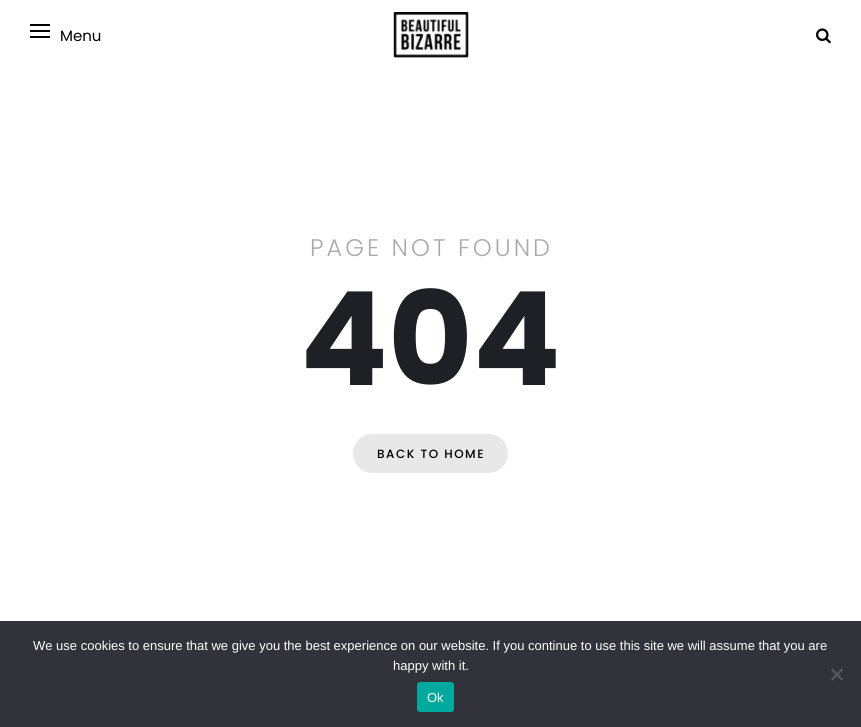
import math
import cairo


def use_color(cr, r, g, b):
  cr.set_source_rgb(r / 255, g / 255, b / 255)

def text(cr, x, y, s, family, size, color, bold=False, italic=False):
  cr.select_font_face(family, cairo.FONT_SLANT_ITALIC if italic else cairo.FONT_SLANT_NORMAL, cairo.FONT_WEIGHT_BOLD if bold else cairo.FONT_WEIGHT_NORMAL)
  cr.set_font_size(size)
  use_color(cr, *color)
  cr.move_to(x, y)
  cr.show_text(s)

def spaced_text(cr, x, y, s, letter, word):
  cr.move_to(x, y)
  for ch in s:
    cr.show_text(ch)
    cr.rel_move_to(letter + word * (ch == ' '), 0)

def box(cr, x, y, w, h, *color):
  use_color(cr, *color)
  cr.rectangle(x, y, w, h)
  cr.fill()

def round_rect(cr, x, y, w, h, r):
  cr.new_sub_path()
  for i, (u, v) in enumerate([(x + w - r, y + h - r), (x + r, y + h - r), (x + r, y + r), (x + w - r, y + r)]):
    cr.arc(u, v, r, i * math.pi / 2, (i + 1) * math.pi / 2)
  cr.close_path()

def picture(cr, path, x, y, w, h):
  cr.save()
  cr.set_source_surface(cairo.ImageSurface.create_from_png(path), x, y)
  cr.rectangle(x, y, w, h)
  cr.fill()
  cr.restore()

def draw(cr):
  use_color(cr, 255, 255, 255)
  cr.paint()
  box(cr, 30, 24, 20, 2, 0, 0, 0)
  box(cr, 30, 36, 20, 2, 0, 0, 0)
  box(cr, 30, 30, 20, 2, 0, 0, 0)
  picture(cr, "img_01.png", 393, 12, 76, 46)
  picture(cr, "img_02.png", 816, 28, 15, 16)
  use_color(cr, 232, 232, 232)
  round_rect(cr, 353, 434, 155, 39, 19.5)
  cr.fill()
  box(cr, 0, 621, 861, 106, 50, 50, 58)
  use_color(cr, 89, 89, 93)
  cr.new_path()
  cr.move_to(841.5, 668.5)
  cr.line_to(843, 670)
  cr.line_to(832.5, 680.5)
  cr.line_to(831, 679)
  cr.close_path()
  cr.fill()
  cr.new_path()
  cr.move_to(831, 670)
  cr.line_to(832.5, 668.5)
  cr.line_to(843, 679)
  cr.line_to(841.5, 680.5)
  cr.close_path()
  cr.fill()
  use_color(cr, 0, 169, 157)
  round_rect(cr, 417, 682, 37, 30, 3)
  cr.fill()
  text(cr, 60, 41, "Menu", "Poppins", 15, (0, 0, 0))
  cr.select_font_face("Poppins Light")
  cr.set_font_size(24)
  use_color(cr, 170, 170, 170)
  spaced_text(cr, 310, 256, "PAGE NOT FOUND", 3, 0)
  text(cr, 300, 385, "404", "Poppins", 130, (31, 32, 37), bold=True)
  cr.select_font_face("Poppins Medium")
  cr.set_font_size(12)
  use_color(cr, 0, 0, 0)
  spaced_text(cr, 377, 458, "BACK TO HOME", 1.5, 0)
  text(cr, 33, 650, "We use cookies to ensure that we give you the best experience on our website. If you continue to use this site we will assume that you are", "Liberation Sans", 13, (255, 255, 255))
  text(cr, 393, 670, "happy with it.", "Liberation Sans", 13, (255, 255, 255))
  text(cr, 427, 702, "Ok", "Liberation Sans", 13, (255, 255, 255))


surface = cairo.ImageSurface(cairo.FORMAT_RGB24, 861, 727)
cr = cairo.Context(surface)
options = cairo.FontOptions()
options.set_hint_metrics(cairo.HINT_METRICS_OFF)
options.set_hint_style(cairo.HINT_STYLE_NONE)
cr.set_font_options(options)
cr.set_miter_limit(4)
draw(cr)
surface.write_to_png("out.png")
